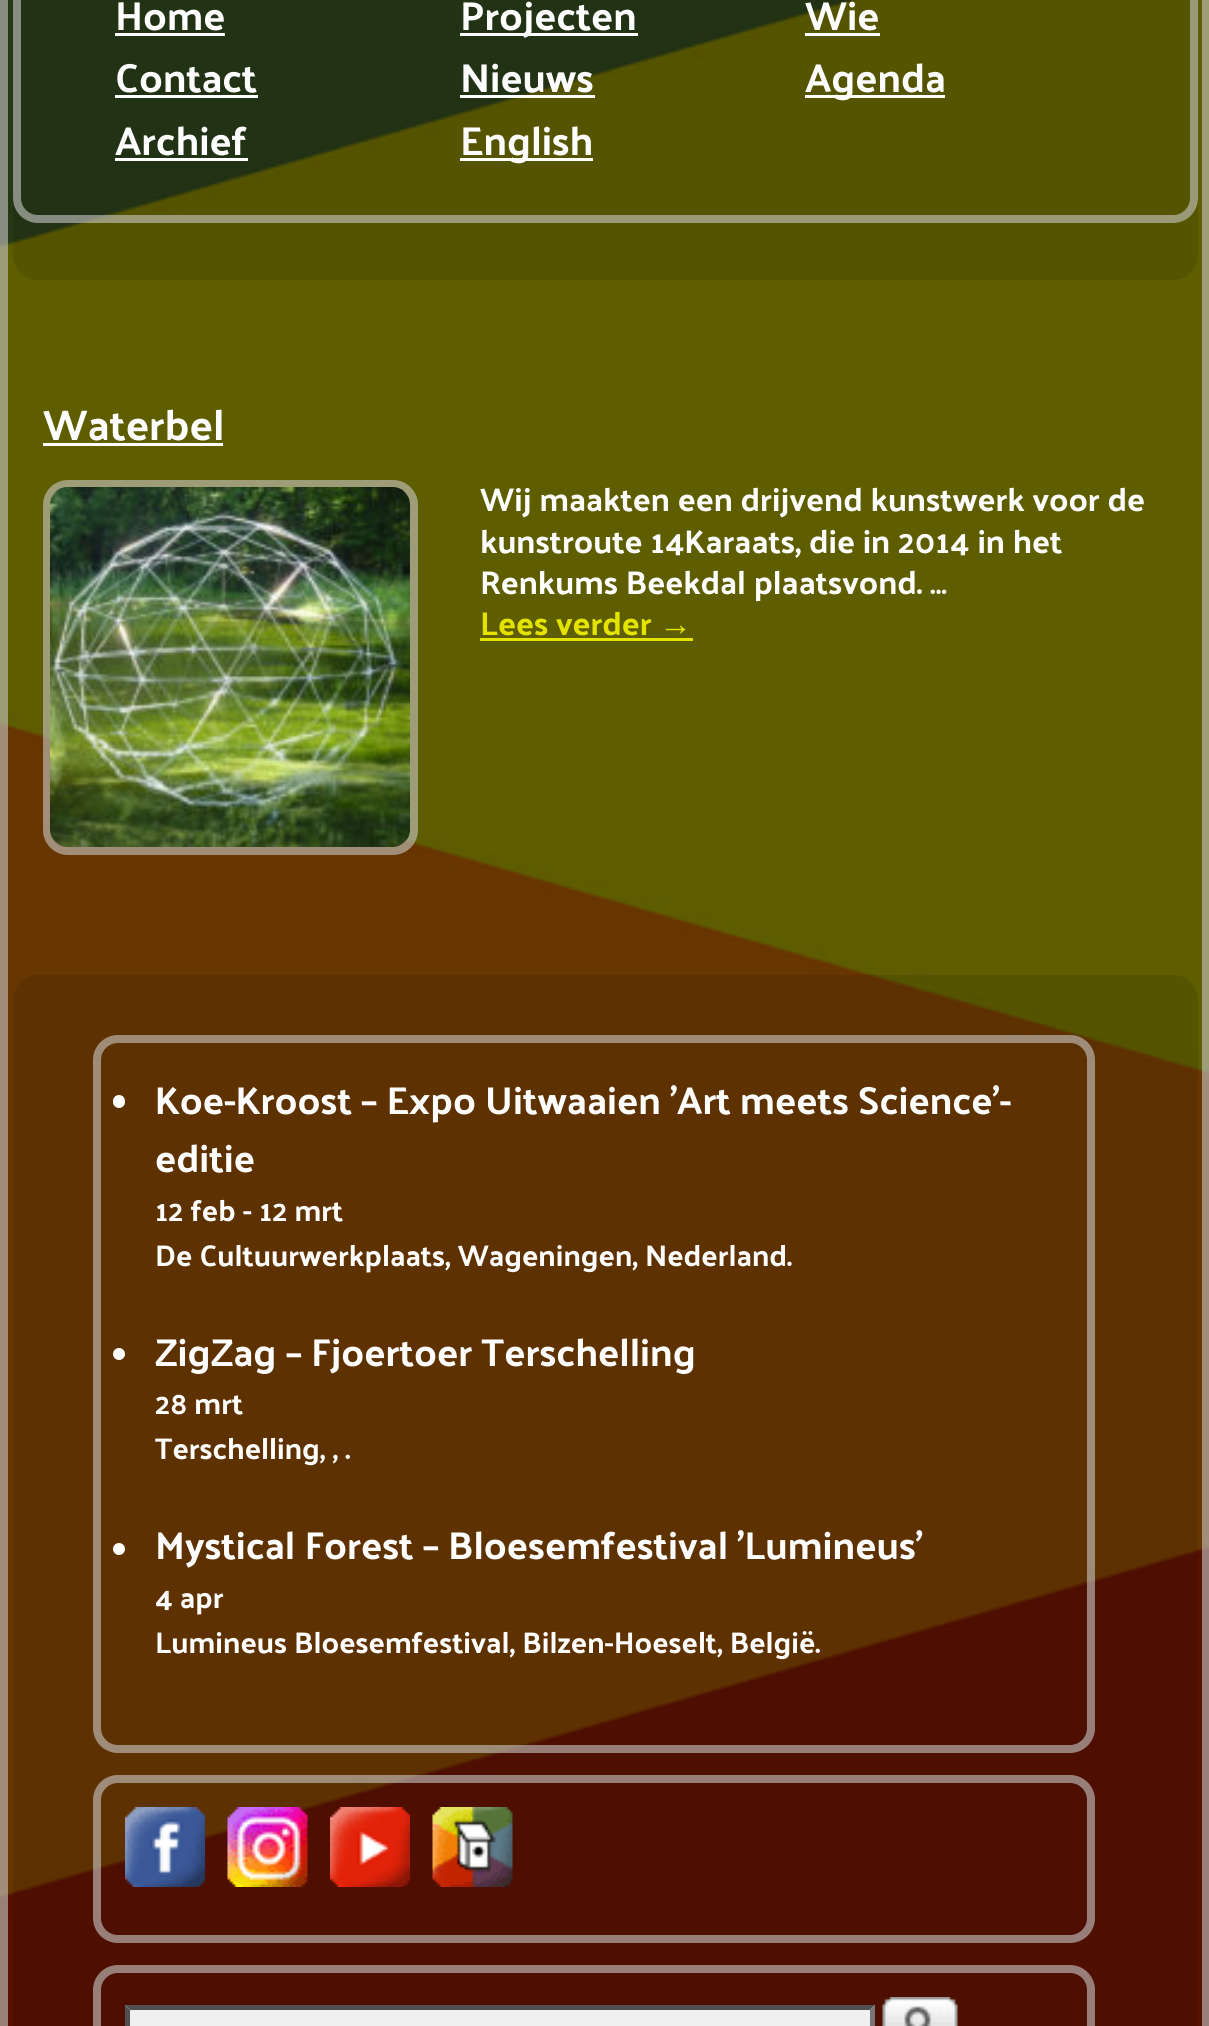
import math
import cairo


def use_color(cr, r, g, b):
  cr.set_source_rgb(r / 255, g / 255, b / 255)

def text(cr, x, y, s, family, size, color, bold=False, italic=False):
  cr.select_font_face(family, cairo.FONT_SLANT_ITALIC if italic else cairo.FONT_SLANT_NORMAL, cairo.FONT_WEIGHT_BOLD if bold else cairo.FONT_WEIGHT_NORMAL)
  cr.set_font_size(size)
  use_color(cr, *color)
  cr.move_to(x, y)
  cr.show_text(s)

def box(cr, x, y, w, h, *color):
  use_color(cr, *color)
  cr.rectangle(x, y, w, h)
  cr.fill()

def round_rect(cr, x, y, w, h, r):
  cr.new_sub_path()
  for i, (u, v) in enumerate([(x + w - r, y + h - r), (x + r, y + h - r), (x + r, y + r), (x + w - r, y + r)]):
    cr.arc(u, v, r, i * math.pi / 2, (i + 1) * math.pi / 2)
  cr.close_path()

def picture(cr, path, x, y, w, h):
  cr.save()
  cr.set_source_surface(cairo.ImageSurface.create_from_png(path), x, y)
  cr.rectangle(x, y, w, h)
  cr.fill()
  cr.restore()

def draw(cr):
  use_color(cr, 255, 255, 255)
  cr.paint()
  picture(cr, "img_01.png", 0, 0, 1209, 2026)
  cr.rectangle(4, -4, 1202, 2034)
  cr.set_source_rgba(0.784, 0.784, 0.784, 0.6)
  cr.set_line_width(8)
  cr.stroke()
  cr.set_source_rgba(0, 0, 0, 0.1)
  round_rect(cr, 13, -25, 1185, 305, 25)
  cr.fill()
  round_rect(cr, 17, -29, 1177, 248, 21)
  cr.set_source_rgba(0.784, 0.784, 0.784, 0.6)
  cr.stroke()
  box(cr, 115, 33, 110, 3, 255, 255, 255)
  box(cr, 460, 33, 178, 3, 255, 255, 255)
  box(cr, 805, 33, 75, 3, 255, 255, 255)
  box(cr, 115, 95, 143, 3, 255, 255, 255)
  box(cr, 460, 95, 135, 3, 255, 255, 255)
  box(cr, 805, 95, 140, 3, 255, 255, 255)
  box(cr, 115, 158, 133, 3, 255, 255, 255)
  box(cr, 460, 158, 133, 3, 255, 255, 255)
  box(cr, 43, 443, 180, 3, 253, 253, 253)
  cr.set_source_rgba(0.784, 0.784, 0.784, 0.6)
  round_rect(cr, 43, 480, 375, 375, 25)
  cr.fill()
  picture(cr, "img_02.png", 50, 487, 360, 360)
  box(cr, 480, 638, 213, 3, 228, 227, 0)
  cr.set_source_rgba(0, 0, 0, 0.1)
  round_rect(cr, 13, 975, 1185, 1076, 25)
  cr.fill()
  round_rect(cr, 97, 1039, 994, 710, 21)
  cr.set_source_rgba(0.784, 0.784, 0.784, 0.6)
  cr.stroke()
  use_color(cr, 255, 255, 255)
  round_rect(cr, 113, 1095, 12, 13, 6)
  cr.fill()
  cr.arc(119, 1354, 6, 0, 2 * math.pi)
  cr.fill()
  cr.arc(119, 1549, 6, 0, 2 * math.pi)
  cr.fill()
  round_rect(cr, 97, 1779, 994, 160, 21)
  cr.set_source_rgba(0.784, 0.784, 0.784, 0.6)
  cr.stroke()
  picture(cr, "img_03.png", 125, 1807, 80, 80)
  picture(cr, "img_04.png", 227, 1807, 81, 80)
  picture(cr, "img_05.png", 330, 1807, 80, 80)
  picture(cr, "img_06.png", 432, 1807, 81, 80)
  round_rect(cr, 97, 1969, 994, 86, 21)
  use_color(cr, 151, 126, 120)
  cr.stroke()
  box(cr, 125, 2005, 750, 21, 240, 240, 240)
  use_color(cr, 79, 79, 79)
  cr.new_path()
  cr.move_to(125, 2005)
  cr.line_to(875, 2005)
  cr.line_to(870, 2010)
  cr.line_to(130, 2010)
  cr.close_path()
  cr.fill()
  use_color(cr, 118, 118, 118)
  cr.new_path()
  cr.move_to(875, 2005)
  cr.line_to(875, 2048)
  cr.line_to(870, 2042)
  cr.line_to(870, 2010)
  cr.close_path()
  cr.fill()
  use_color(cr, 79, 79, 79)
  cr.new_path()
  cr.move_to(125, 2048)
  cr.line_to(125, 2005)
  cr.line_to(130, 2010)
  cr.line_to(130, 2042)
  cr.close_path()
  cr.fill()
  picture(cr, "img_07.png", 882, 1997, 76, 29)
  text(cr, 115, 30, "Home", "Palanquin Dark", 40.5, (253, 253, 253))
  text(cr, 460, 30, "Projecten", "Palanquin Dark", 40.5, (253, 253, 253))
  text(cr, 805, 30, "Wie", "Palanquin Dark", 40.5, (253, 253, 253))
  text(cr, 115, 92, "Contact", "Palanquin Dark", 40.5, (253, 253, 253))
  text(cr, 460, 92, "Nieuws", "Palanquin Dark", 40.5, (253, 253, 253))
  text(cr, 805, 92, "Agenda", "Palanquin Dark", 40.5, (253, 253, 253))
  text(cr, 115, 155, "Archief", "Palanquin Dark", 40.5, (253, 253, 253))
  text(cr, 460, 155, "English", "Palanquin Dark", 40.5, (253, 253, 253))
  text(cr, 43, 440, "Waterbel", "Palanquin Dark", 43, (253, 253, 253))
  text(cr, 480, 511, "Wij maakten een drijvend kunstwerk voor de", "Palanquin Dark", 33, (253, 253, 253))
  text(cr, 480, 553, "kunstroute 14Karaats, die in 2014 in het", "Palanquin Dark", 33, (253, 253, 253))
  text(cr, 480, 594, "Renkums Beekdal plaatsvond. …", "Palanquin Dark", 33, (253, 253, 253))
  text(cr, 480, 635, "Lees verder", "Palanquin Dark", 33, (228, 227, 0))
  text(cr, 659, 635, "→", "Liberation Sans", 33, (228, 227, 0))
  text(cr, 155, 1114, "Koe-Kroost – Expo Uitwaaien 'Art meets Science'-", "Palanquin Dark", 39, (253, 253, 253))
  text(cr, 155, 1172, "editie", "Palanquin Dark", 39, (253, 253, 253))
  text(cr, 155, 1221, "12 feb - 12 mrt", "Palanquin Dark", 30, (253, 253, 253))
  text(cr, 155, 1266, "De Cultuurwerkplaats, Wageningen, Nederland.", "Palanquin Dark", 30, (253, 253, 253))
  text(cr, 155, 1366, "ZigZag – Fjoertoer Terschelling", "Palanquin Dark", 39, (253, 253, 253))
  text(cr, 155, 1414, "28 mrt", "Palanquin Dark", 30, (253, 253, 253))
  text(cr, 155, 1459, "Terschelling, , .", "Palanquin Dark", 30, (253, 253, 253))
  text(cr, 155, 1559, "Mystical Forest – Bloesemfestival 'Lumineus'", "Palanquin Dark", 39, (253, 253, 253))
  text(cr, 155, 1608, "4 apr", "Palanquin Dark", 30, (253, 253, 253))
  text(cr, 155, 1653, "Lumineus Bloesemfestival, Bilzen-Hoeselt, België.", "Palanquin Dark", 30, (253, 253, 253))


surface = cairo.ImageSurface(cairo.FORMAT_RGB24, 1209, 2026)
cr = cairo.Context(surface)
options = cairo.FontOptions()
options.set_hint_metrics(cairo.HINT_METRICS_OFF)
options.set_hint_style(cairo.HINT_STYLE_NONE)
cr.set_font_options(options)
cr.set_miter_limit(4)
draw(cr)
surface.write_to_png("out.png")
